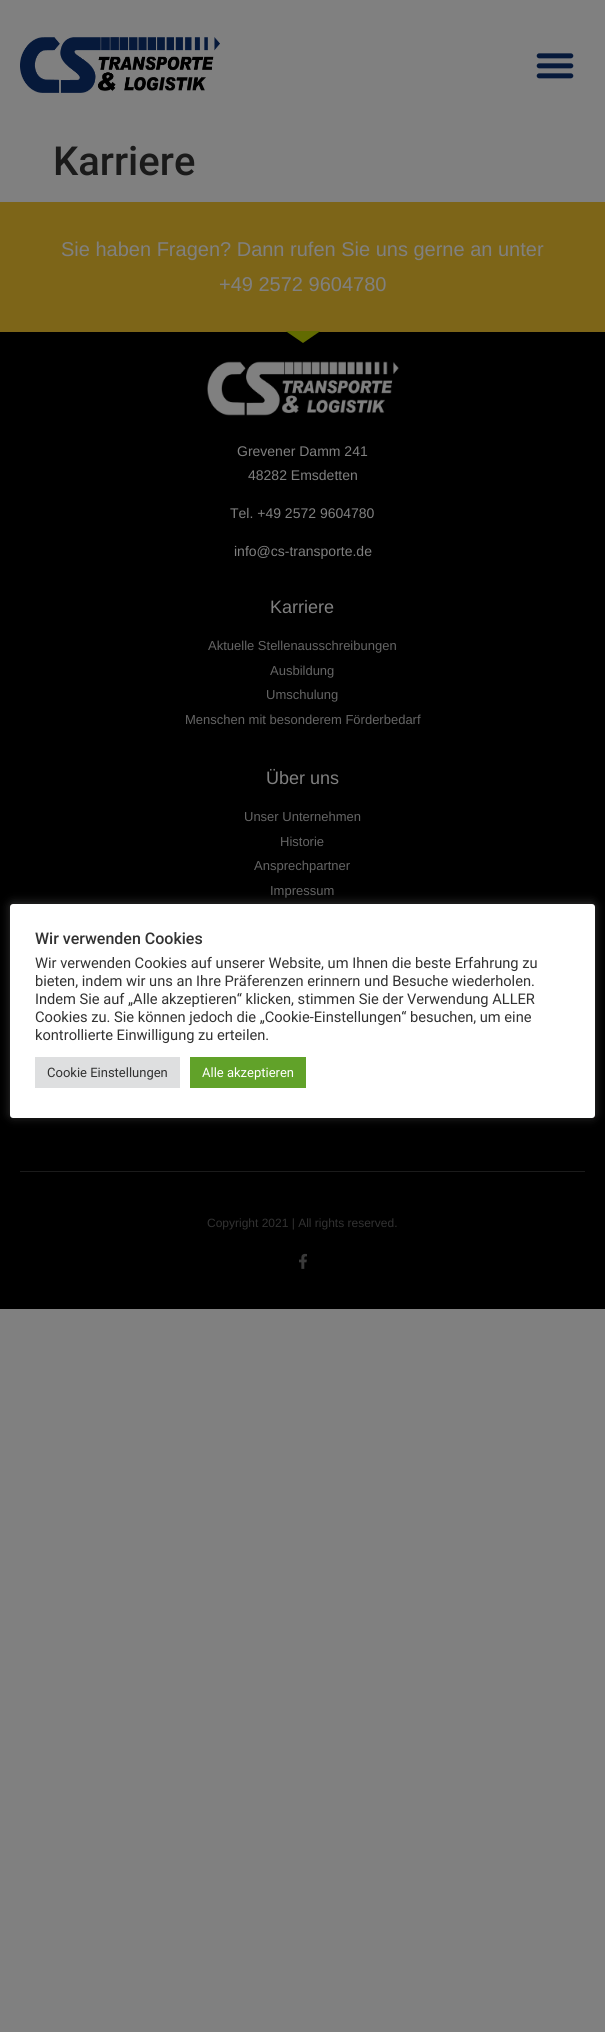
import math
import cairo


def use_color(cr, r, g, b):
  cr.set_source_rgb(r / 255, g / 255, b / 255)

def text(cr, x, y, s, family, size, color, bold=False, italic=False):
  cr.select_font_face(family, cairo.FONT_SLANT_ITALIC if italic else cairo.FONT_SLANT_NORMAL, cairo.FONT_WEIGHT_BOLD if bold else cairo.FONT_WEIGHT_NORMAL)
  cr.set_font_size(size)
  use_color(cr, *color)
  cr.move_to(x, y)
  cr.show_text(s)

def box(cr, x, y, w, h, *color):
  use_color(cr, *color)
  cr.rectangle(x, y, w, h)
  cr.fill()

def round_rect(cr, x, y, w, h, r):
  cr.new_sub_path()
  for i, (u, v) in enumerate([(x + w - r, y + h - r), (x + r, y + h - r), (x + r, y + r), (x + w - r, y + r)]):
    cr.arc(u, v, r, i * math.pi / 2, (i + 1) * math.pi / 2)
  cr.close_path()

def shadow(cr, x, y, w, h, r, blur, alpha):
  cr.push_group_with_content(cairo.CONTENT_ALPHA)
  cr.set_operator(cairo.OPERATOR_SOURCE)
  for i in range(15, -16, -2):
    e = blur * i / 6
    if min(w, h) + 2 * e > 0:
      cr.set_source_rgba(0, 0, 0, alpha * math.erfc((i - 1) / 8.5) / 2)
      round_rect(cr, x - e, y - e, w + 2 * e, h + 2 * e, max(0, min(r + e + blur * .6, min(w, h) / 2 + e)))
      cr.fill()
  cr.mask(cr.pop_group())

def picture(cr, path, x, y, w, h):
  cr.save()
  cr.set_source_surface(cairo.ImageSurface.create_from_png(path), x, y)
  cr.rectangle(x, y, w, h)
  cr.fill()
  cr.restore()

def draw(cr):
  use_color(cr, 128, 128, 128)
  cr.paint()
  picture(cr, "img_01.png", 20, 37, 200, 56)
  picture(cr, "img_02.png", 536, 53, 38, 26)
  box(cr, 0, 202, 605, 130, 125, 101, 24)
  box(cr, 0, 332, 605, 977, 0, 0, 0)
  use_color(cr, 98, 107, 1)
  cr.new_path()
  cr.move_to(303, 343)
  cr.line_to(285.5, 331)
  cr.line_to(320.5, 331)
  cr.close_path()
  cr.fill()
  picture(cr, "img_03.png", 207, 361, 192, 55)
  box(cr, 20, 1171, 565, 1, 27, 27, 27)
  picture(cr, "img_04.png", 299, 1253, 8, 16)
  use_color(cr, 172, 171, 171)
  shadow(cr, 10, 903, 585, 214, 3, 5, 0.3)
  use_color(cr, 255, 255, 255)
  round_rect(cr, 10, 904, 585, 214, 3)
  cr.fill()
  box(cr, 35, 1057, 145, 31, 222, 223, 224)
  box(cr, 190, 1057, 116, 31, 97, 162, 41)
  text(cr, 53, 175, "Karriere", "Roboto Medium", 40, (26, 26, 26))
  text(cr, 61, 256, "Sie haben Fragen? Dann rufen Sie uns gerne an unter", "Liberation Sans", 20, (128, 128, 128))
  text(cr, 219, 291, "+49 2572 9604780", "Liberation Sans", 20, (128, 128, 128))
  text(cr, 237, 456, "Grevener Damm 241", "Liberation Sans", 14, (128, 128, 128))
  text(cr, 248, 480, "48282 Emsdetten", "Liberation Sans", 14, (128, 128, 128))
  text(cr, 230, 518, "Tel. +49 2572 9604780", "Liberation Sans", 14, (128, 128, 128))
  text(cr, 234, 556, "info@cs-transporte.de", "Liberation Sans", 14, (128, 128, 128))
  text(cr, 270, 613, "Karriere", "Liberation Sans", 18, (128, 128, 128))
  text(cr, 208, 650, "Aktuelle Stellenausschreibungen", "Liberation Sans", 13, (101, 101, 101))
  text(cr, 270, 675, "Ausbildung", "Liberation Sans", 13, (101, 101, 101))
  text(cr, 266, 699, "Umschulung", "Liberation Sans", 13, (101, 101, 101))
  text(cr, 185, 724, "Menschen mit besonderem Förderbedarf", "Liberation Sans", 13, (101, 101, 101))
  text(cr, 266, 784, "Über uns", "Liberation Sans", 18, (128, 128, 128))
  text(cr, 244, 821, "Unser Unternehmen", "Liberation Sans", 13, (101, 101, 101))
  text(cr, 280, 846, "Historie", "Liberation Sans", 13, (101, 101, 101))
  text(cr, 254, 870, "Ansprechpartner", "Liberation Sans", 13, (101, 101, 101))
  text(cr, 270, 895, "Impressum", "Liberation Sans", 13, (101, 101, 101))
  text(cr, 207, 1227, "Copyright 2021 | All rights reserved.", "Liberation Sans", 12, (50, 50, 50))
  text(cr, 35, 944, "Wir verwenden Cookies", "Roboto Medium", 16, (50, 50, 50))
  text(cr, 35, 968, "Wir verwenden Cookies auf unserer Website, um Ihnen die beste Erfahrung zu", "Roboto", 14.65, (50, 50, 50))
  text(cr, 35, 986, "bieten, indem wir uns an Ihre Präferenzen erinnern und Besuche wiederholen.", "Roboto", 14.65, (50, 50, 50))
  text(cr, 35, 1004, "Indem Sie auf „Alle akzeptieren“ klicken, stimmen Sie der Verwendung ALLER", "Roboto", 14.65, (50, 50, 50))
  text(cr, 35, 1022, "Cookies zu. Sie können jedoch die „Cookie-Einstellungen“ besuchen, um eine", "Roboto", 14.65, (50, 50, 50))
  text(cr, 35, 1040, "kontrollierte Einwilligung zu erteilen.", "Roboto", 14.65, (50, 50, 50))
  text(cr, 47, 1077, "Cookie Einstellungen", "Roboto", 13, (50, 50, 50))
  text(cr, 202, 1077, "Alle akzeptieren", "Roboto", 13, (255, 255, 255))


surface = cairo.ImageSurface(cairo.FORMAT_RGB24, 605, 2032)
cr = cairo.Context(surface)
options = cairo.FontOptions()
options.set_hint_metrics(cairo.HINT_METRICS_OFF)
options.set_hint_style(cairo.HINT_STYLE_NONE)
cr.set_font_options(options)
cr.set_miter_limit(4)
draw(cr)
surface.write_to_png("out.png")
